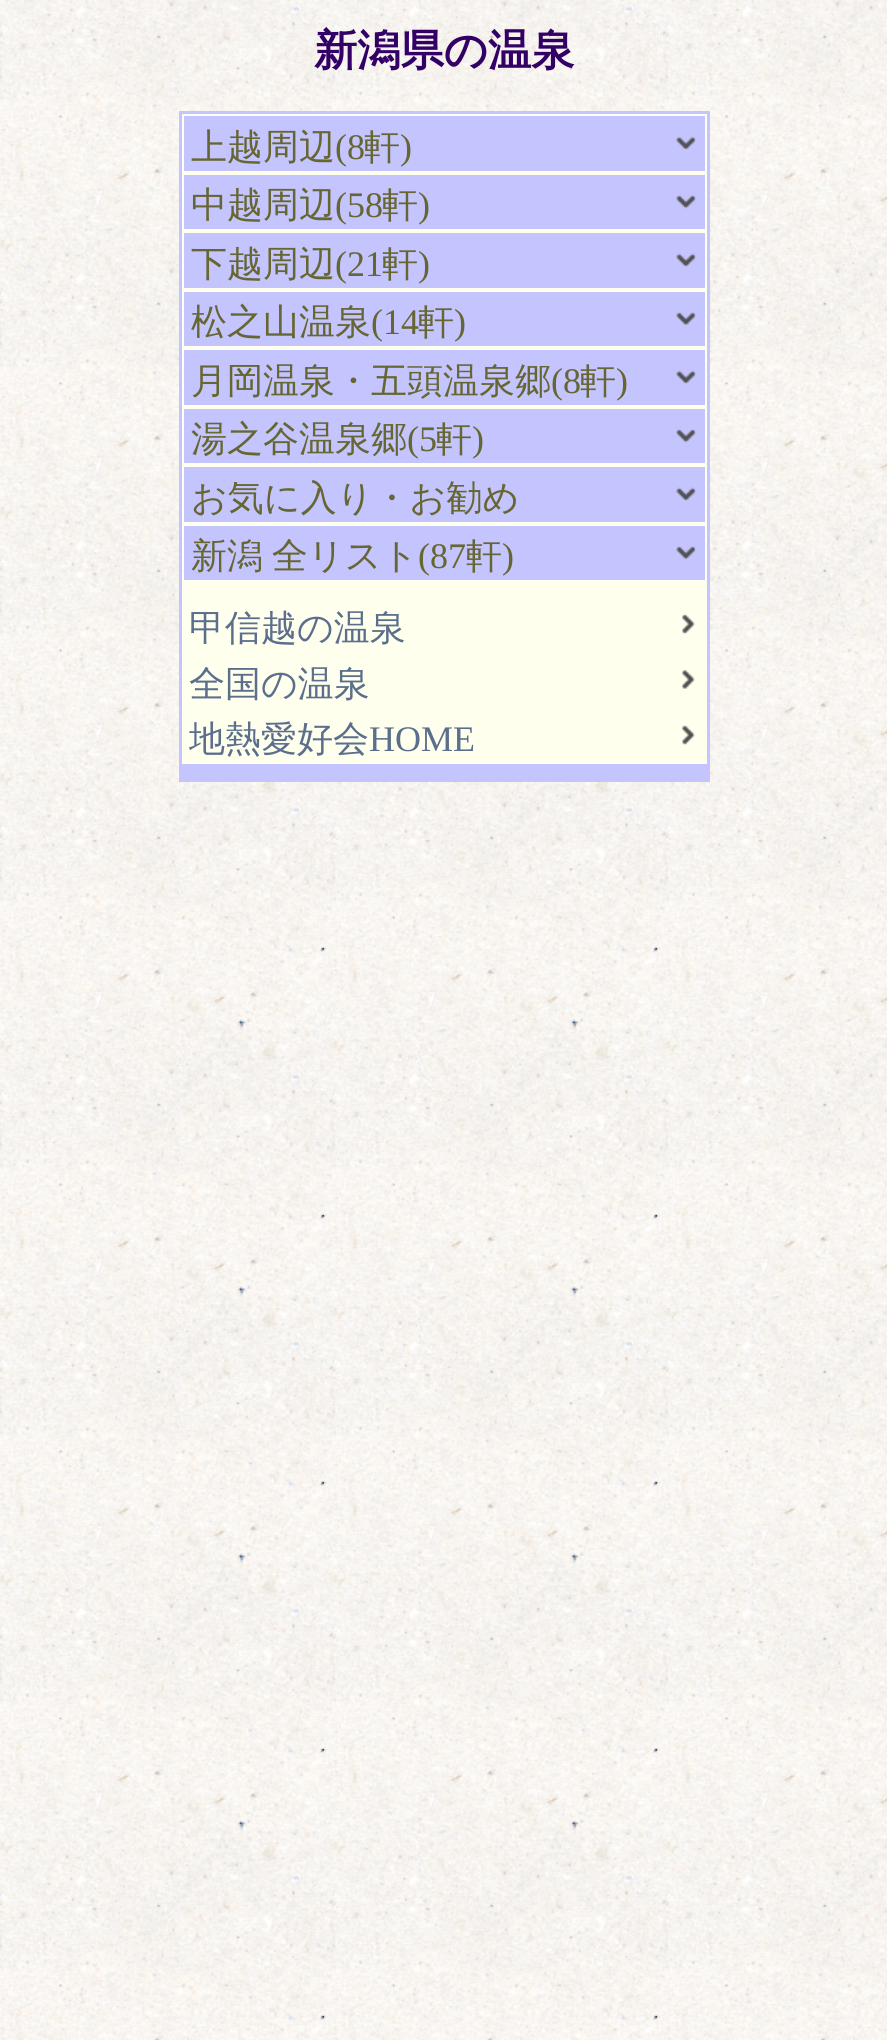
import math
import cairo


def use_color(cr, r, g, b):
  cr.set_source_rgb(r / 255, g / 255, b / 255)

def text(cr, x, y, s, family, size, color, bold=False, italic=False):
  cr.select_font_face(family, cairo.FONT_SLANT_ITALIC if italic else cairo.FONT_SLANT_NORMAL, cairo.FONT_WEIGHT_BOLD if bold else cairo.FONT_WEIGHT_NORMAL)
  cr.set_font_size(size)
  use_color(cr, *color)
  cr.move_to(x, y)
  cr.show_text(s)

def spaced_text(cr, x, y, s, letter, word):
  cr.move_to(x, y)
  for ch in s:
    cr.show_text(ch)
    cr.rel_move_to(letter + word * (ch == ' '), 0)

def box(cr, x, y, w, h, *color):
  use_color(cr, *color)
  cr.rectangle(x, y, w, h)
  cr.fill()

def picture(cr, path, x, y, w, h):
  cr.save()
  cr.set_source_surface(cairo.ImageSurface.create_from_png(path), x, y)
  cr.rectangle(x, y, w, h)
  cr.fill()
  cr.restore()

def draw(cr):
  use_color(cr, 255, 255, 255)
  cr.paint()
  picture(cr, "img_01.png", 0, 0, 887, 2040)
  box(cr, 179, 111, 531, 671, 196, 196, 255)
  cr.rectangle(183, 115, 523, 57)
  use_color(cr, 255, 255, 238)
  cr.stroke()
  picture(cr, "img_02.png", 676, 136, 21, 14)
  cr.rectangle(183, 174, 523, 56)
  cr.stroke()
  picture(cr, "img_03.png", 676, 195, 21, 14)
  cr.rectangle(183, 232, 523, 57)
  cr.stroke()
  picture(cr, "img_02.png", 676, 253, 21, 14)
  cr.rectangle(183, 291, 523, 56)
  cr.stroke()
  picture(cr, "img_03.png", 676, 312, 21, 14)
  cr.rectangle(183, 349, 523, 57)
  cr.stroke()
  picture(cr, "img_02.png", 676, 370, 21, 14)
  cr.rectangle(183, 408, 523, 56)
  cr.stroke()
  picture(cr, "img_03.png", 676, 429, 21, 14)
  cr.rectangle(183, 466, 523, 57)
  cr.stroke()
  picture(cr, "img_02.png", 676, 487, 21, 14)
  cr.rectangle(183, 525, 523, 56)
  cr.stroke()
  picture(cr, "img_03.png", 676, 546, 21, 14)
  box(cr, 182, 582, 525, 182, 255, 255, 238)
  picture(cr, "img_04.png", 682, 614, 13, 20)
  picture(cr, "img_05.png", 682, 670, 13, 19)
  picture(cr, "img_04.png", 682, 725, 13, 20)
  text(cr, 314, 65, "新潟県の温泉", "WenQuanYi Zen Hei", 43.25, (51, 0, 102), bold=True)
  text(cr, 191, 159, "上越周辺", "WenQuanYi Zen Hei Medium", 36, (102, 102, 51))
  text(cr, 335, 159, "(8", "Liberation Serif", 36, (102, 102, 51))
  text(cr, 364, 159, "軒", "WenQuanYi Zen Hei Medium", 36, (102, 102, 51))
  text(cr, 400, 159, ")", "Liberation Serif", 36, (102, 102, 51))
  text(cr, 191, 217, "中越周辺", "WenQuanYi Zen Hei Medium", 36, (102, 102, 51))
  text(cr, 335, 217, "(58", "Liberation Serif", 36, (102, 102, 51))
  text(cr, 382, 217, "軒", "WenQuanYi Zen Hei Medium", 36, (102, 102, 51))
  text(cr, 418, 217, ")", "Liberation Serif", 36, (102, 102, 51))
  text(cr, 191, 276, "下越周辺", "WenQuanYi Zen Hei Medium", 36, (102, 102, 51))
  text(cr, 335, 276, "(21", "Liberation Serif", 36, (102, 102, 51))
  text(cr, 382, 276, "軒", "WenQuanYi Zen Hei Medium", 36, (102, 102, 51))
  text(cr, 418, 276, ")", "Liberation Serif", 36, (102, 102, 51))
  text(cr, 191, 334, "松之山温泉", "WenQuanYi Zen Hei Medium", 36, (102, 102, 51))
  text(cr, 371, 334, "(14", "Liberation Serif", 36, (102, 102, 51))
  text(cr, 418, 334, "軒", "WenQuanYi Zen Hei Medium", 36, (102, 102, 51))
  text(cr, 454, 334, ")", "Liberation Serif", 36, (102, 102, 51))
  text(cr, 191, 393, "月岡温泉・五頭温泉郷", "WenQuanYi Zen Hei Medium", 36, (102, 102, 51))
  text(cr, 551, 393, "(8", "Liberation Serif", 36, (102, 102, 51))
  text(cr, 580, 393, "軒", "WenQuanYi Zen Hei Medium", 36, (102, 102, 51))
  text(cr, 616, 393, ")", "Liberation Serif", 36, (102, 102, 51))
  text(cr, 191, 451, "湯之谷温泉郷", "WenQuanYi Zen Hei Medium", 36, (102, 102, 51))
  text(cr, 407, 451, "(5", "Liberation Serif", 36, (102, 102, 51))
  text(cr, 436, 451, "軒", "WenQuanYi Zen Hei Medium", 36, (102, 102, 51))
  text(cr, 472, 451, ")", "Liberation Serif", 36, (102, 102, 51))
  text(cr, 191, 510, "お気に入り・お勧め", "WenQuanYi Zen Hei Medium", 36, (102, 102, 51))
  spaced_text(cr, 191, 568, "新潟 全リスト", 0, -2)
  text(cr, 418, 568, "(87", "Liberation Serif", 36, (102, 102, 51))
  text(cr, 466, 568, "軒", "WenQuanYi Zen Hei Medium", 36, (102, 102, 51))
  text(cr, 502, 568, ")", "Liberation Serif", 36, (102, 102, 51))
  text(cr, 189, 640, "甲信越の温泉", "WenQuanYi Zen Hei Medium", 36, (91, 111, 140))
  text(cr, 189, 696, "全国の温泉", "WenQuanYi Zen Hei Medium", 36, (91, 111, 140))
  text(cr, 189, 751, "地熱愛好会", "WenQuanYi Zen Hei Medium", 36, (91, 111, 140))
  text(cr, 369, 751, "HOME", "Liberation Serif", 36, (91, 111, 140))


surface = cairo.ImageSurface(cairo.FORMAT_RGB24, 887, 2040)
cr = cairo.Context(surface)
options = cairo.FontOptions()
options.set_hint_metrics(cairo.HINT_METRICS_OFF)
options.set_hint_style(cairo.HINT_STYLE_NONE)
cr.set_font_options(options)
cr.set_miter_limit(4)
draw(cr)
surface.write_to_png("out.png")
